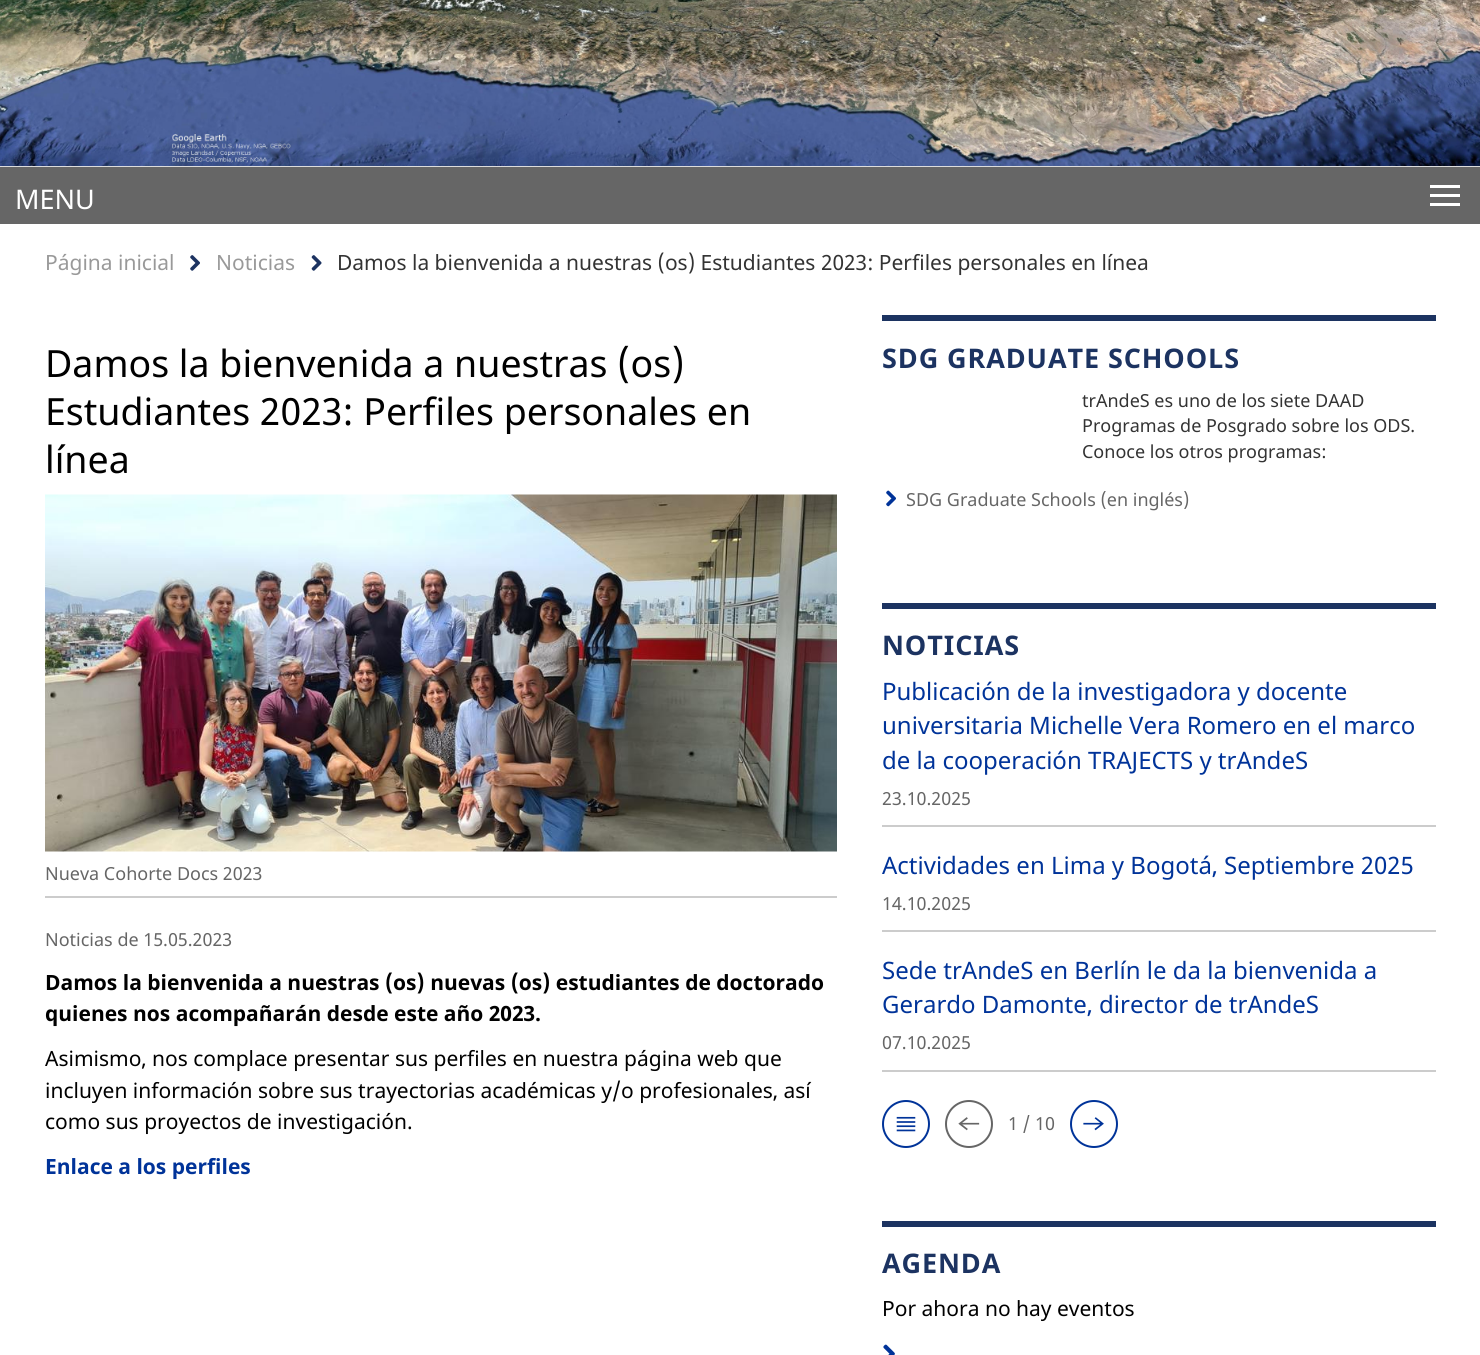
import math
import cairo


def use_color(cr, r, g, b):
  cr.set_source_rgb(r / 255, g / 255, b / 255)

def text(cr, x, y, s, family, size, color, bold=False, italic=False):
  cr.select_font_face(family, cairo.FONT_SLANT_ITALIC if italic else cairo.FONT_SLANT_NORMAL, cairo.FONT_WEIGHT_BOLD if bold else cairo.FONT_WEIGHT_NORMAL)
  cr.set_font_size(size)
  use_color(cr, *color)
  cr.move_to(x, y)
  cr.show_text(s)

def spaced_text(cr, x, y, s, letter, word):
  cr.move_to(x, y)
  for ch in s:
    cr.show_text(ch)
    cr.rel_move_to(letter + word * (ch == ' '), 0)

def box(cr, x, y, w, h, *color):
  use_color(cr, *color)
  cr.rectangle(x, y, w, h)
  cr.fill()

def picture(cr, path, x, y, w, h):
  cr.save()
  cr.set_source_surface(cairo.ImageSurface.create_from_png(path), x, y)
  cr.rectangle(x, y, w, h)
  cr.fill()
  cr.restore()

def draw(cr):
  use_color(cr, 255, 255, 255)
  cr.paint()
  box(cr, 0, 166, 1480, 1, 221, 221, 221)
  picture(cr, "img_01.png", 0, 0, 1480, 166)
  box(cr, 0, 167, 1480, 57, 102, 102, 102)
  box(cr, 1430, 185, 30, 3, 255, 255, 255)
  box(cr, 1430, 194, 30, 3, 255, 255, 255)
  box(cr, 1430, 203, 30, 3, 255, 255, 255)
  picture(cr, "img_02.png", 190, 255, 10, 16)
  picture(cr, "img_03.png", 311, 255, 11, 16)
  picture(cr, "img_04.png", 45, 494, 792, 358)
  box(cr, 45, 896, 792, 2, 204, 204, 204)
  box(cr, 882, 315, 554, 6, 28, 51, 97)
  picture(cr, "img_05.png", 886, 490, 10, 17)
  box(cr, 882, 603, 554, 6, 28, 51, 97)
  box(cr, 882, 825, 554, 2, 204, 204, 204)
  box(cr, 882, 930, 554, 2, 204, 204, 204)
  box(cr, 882, 1070, 554, 2, 204, 204, 204)
  cr.arc(906, 1124, 23, 0, 2 * math.pi)
  use_color(cr, 0, 51, 153)
  cr.stroke()
  picture(cr, "img_06.png", 896, 1116, 20, 16)
  cr.arc(969, 1124, 23, 0, 2 * math.pi)
  use_color(cr, 102, 102, 102)
  cr.stroke()
  picture(cr, "img_07.png", 958, 1117, 22, 14)
  cr.arc(1094, 1124, 23, 0, 2 * math.pi)
  use_color(cr, 0, 51, 153)
  cr.stroke()
  picture(cr, "img_08.png", 1083, 1117, 21, 14)
  box(cr, 882, 1221, 554, 6, 28, 51, 97)
  picture(cr, "img_09.png", 883, 1344, 12, 11)
  text(cr, 15, 209, "MENU", "Noto Sans", 27, (255, 255, 255))
  text(cr, 45, 270, "Página inicial", "Noto Sans", 21, (153, 153, 153))
  text(cr, 216, 270, "Noticias", "Noto Sans", 21, (153, 153, 153))
  text(cr, 337, 270, "Damos la bienvenida a nuestras (os) Estudiantes 2023: Perfiles personales en línea", "Noto Sans", 21, (51, 51, 51))
  text(cr, 45, 377, "Damos la bienvenida a nuestras (os)", "Noto Sans", 37.5, (0, 0, 0))
  text(cr, 45, 425, "Estudiantes 2023: Perfiles personales en", "Noto Sans", 37.5, (0, 0, 0))
  text(cr, 45, 473, "línea", "Noto Sans", 37.5, (0, 0, 0))
  text(cr, 45, 880, "Nueva Cohorte Docs 2023", "Noto Sans", 18, (102, 102, 102))
  text(cr, 45, 946, "Noticias de 15.05.2023", "Noto Sans", 18, (102, 102, 102))
  text(cr, 45, 990, "Damos la bienvenida a nuestras (os) nuevas (os) estudiantes de doctorado", "Noto Sans", 21, (0, 0, 0), bold=True)
  text(cr, 45, 1021, "quienes nos acompañarán desde este año 2023.", "Noto Sans", 21, (0, 0, 0), bold=True)
  text(cr, 45, 1066, "Asimismo, nos complace presentar sus perfiles en nuestra página web que", "Noto Sans", 21, (0, 0, 0))
  text(cr, 45, 1098, "incluyen información sobre sus trayectorias académicas y/o profesionales, así", "Noto Sans", 21, (0, 0, 0))
  text(cr, 45, 1129, "como sus proyectos de investigación.", "Noto Sans", 21, (0, 0, 0))
  text(cr, 45, 1174, "Enlace a los perfiles", "Noto Sans", 21, (0, 51, 153), bold=True)
  cr.set_font_size(27)
  use_color(cr, 28, 51, 97)
  spaced_text(cr, 882, 368, "SDG GRADUATE SCHOOLS", 0.9, 0)
  text(cr, 1082, 407, "trAndeS es uno de los siete DAAD", "Noto Sans", 18, (51, 51, 51))
  text(cr, 1082, 432, "Programas de Posgrado sobre los ODS.", "Noto Sans", 18, (51, 51, 51))
  text(cr, 1082, 458, "Conoce los otros programas:", "Noto Sans", 18, (51, 51, 51))
  text(cr, 906, 506, "SDG Graduate Schools (en inglés)", "Noto Sans", 18, (102, 102, 102))
  cr.select_font_face("Noto Sans", cairo.FONT_SLANT_NORMAL, cairo.FONT_WEIGHT_BOLD)
  cr.set_font_size(27)
  use_color(cr, 28, 51, 97)
  spaced_text(cr, 882, 655, "NOTICIAS", 0.9, 0)
  text(cr, 882, 700, "Publicación de la investigadora y docente", "Noto Sans", 24, (0, 51, 153))
  text(cr, 882, 734, "universitaria Michelle Vera Romero en el marco", "Noto Sans", 24, (0, 51, 153))
  text(cr, 882, 769, "de la cooperación TRAJECTS y trAndeS", "Noto Sans", 24, (0, 51, 153))
  text(cr, 882, 805, "23.10.2025", "Noto Sans", 18, (102, 102, 102))
  text(cr, 882, 874, "Actividades en Lima y Bogotá, Septiembre 2025", "Noto Sans", 24, (0, 51, 153))
  text(cr, 882, 910, "14.10.2025", "Noto Sans", 18, (102, 102, 102))
  text(cr, 882, 979, "Sede trAndeS en Berlín le da la bienvenida a", "Noto Sans", 24, (0, 51, 153))
  text(cr, 882, 1013, "Gerardo Damonte, director de trAndeS", "Noto Sans", 24, (0, 51, 153))
  text(cr, 882, 1049, "07.10.2025", "Noto Sans", 18, (102, 102, 102))
  text(cr, 1008, 1130, "1 / 10", "Noto Sans", 18, (102, 102, 102))
  cr.select_font_face("Noto Sans", cairo.FONT_SLANT_NORMAL, cairo.FONT_WEIGHT_BOLD)
  cr.set_font_size(27)
  use_color(cr, 28, 51, 97)
  spaced_text(cr, 882, 1273, "AGENDA", 0.9, 0)
  text(cr, 882, 1316, "Por ahora no hay eventos", "Noto Sans", 21, (0, 0, 0))


surface = cairo.ImageSurface(cairo.FORMAT_RGB24, 1480, 1355)
cr = cairo.Context(surface)
options = cairo.FontOptions()
options.set_hint_metrics(cairo.HINT_METRICS_OFF)
options.set_hint_style(cairo.HINT_STYLE_NONE)
cr.set_font_options(options)
cr.set_miter_limit(4)
draw(cr)
surface.write_to_png("out.png")
